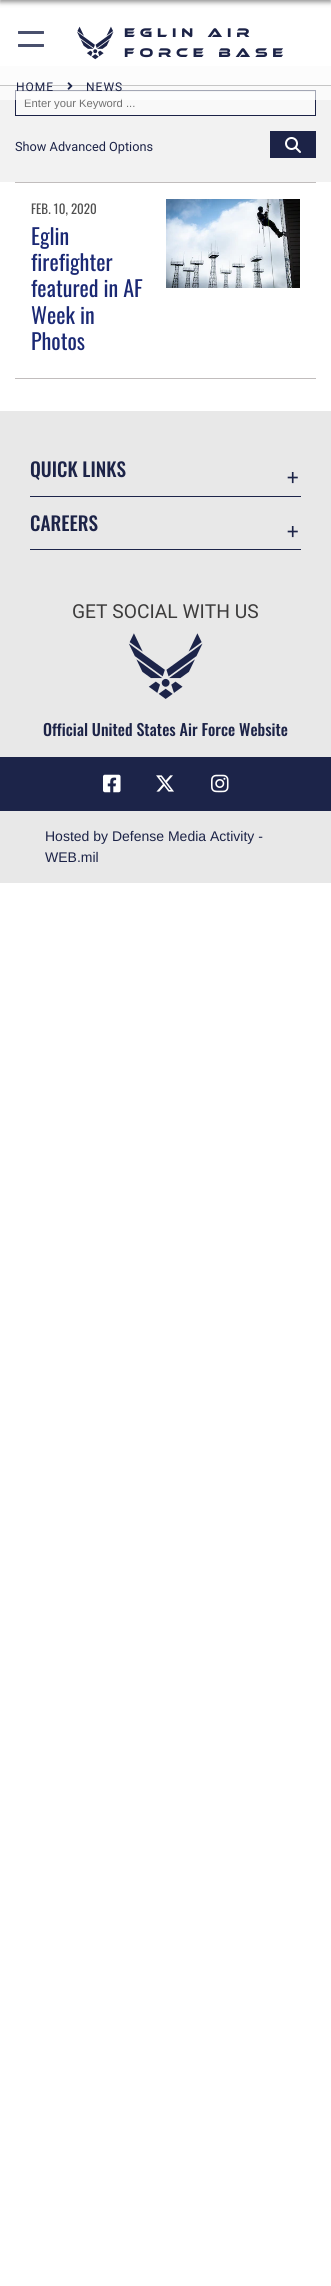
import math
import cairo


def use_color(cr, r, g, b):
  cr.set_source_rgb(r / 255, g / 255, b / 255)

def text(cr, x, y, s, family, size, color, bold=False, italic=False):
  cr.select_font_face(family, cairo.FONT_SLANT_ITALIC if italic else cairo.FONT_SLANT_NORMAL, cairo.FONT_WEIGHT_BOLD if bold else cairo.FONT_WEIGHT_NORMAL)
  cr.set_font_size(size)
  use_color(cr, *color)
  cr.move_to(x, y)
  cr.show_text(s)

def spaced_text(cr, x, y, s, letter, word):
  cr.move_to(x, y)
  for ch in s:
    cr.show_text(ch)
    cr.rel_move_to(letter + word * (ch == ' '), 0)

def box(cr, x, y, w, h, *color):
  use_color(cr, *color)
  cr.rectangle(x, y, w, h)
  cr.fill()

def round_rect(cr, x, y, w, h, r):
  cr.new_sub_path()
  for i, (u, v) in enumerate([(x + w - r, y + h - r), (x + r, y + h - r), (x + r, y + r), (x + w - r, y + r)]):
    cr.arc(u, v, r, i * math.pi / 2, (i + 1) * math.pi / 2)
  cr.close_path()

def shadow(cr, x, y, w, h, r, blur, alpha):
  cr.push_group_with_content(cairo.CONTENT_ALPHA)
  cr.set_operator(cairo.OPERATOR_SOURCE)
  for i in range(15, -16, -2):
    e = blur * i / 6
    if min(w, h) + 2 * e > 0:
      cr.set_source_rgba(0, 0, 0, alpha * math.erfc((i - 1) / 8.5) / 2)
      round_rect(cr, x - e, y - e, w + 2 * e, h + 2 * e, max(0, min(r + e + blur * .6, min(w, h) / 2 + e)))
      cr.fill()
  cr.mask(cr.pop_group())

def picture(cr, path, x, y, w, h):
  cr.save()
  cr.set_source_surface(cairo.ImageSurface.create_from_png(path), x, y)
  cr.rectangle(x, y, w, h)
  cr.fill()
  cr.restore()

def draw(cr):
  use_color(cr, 255, 255, 255)
  cr.paint()
  use_color(cr, 26, 26, 26)
  shadow(cr, 0, -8, 331, 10, 0, 2.5, 0.5)
  box(cr, 0, 85, 331, 1, 112, 112, 112)
  use_color(cr, 73, 80, 109)
  round_rect(cr, 18, 31, 26, 3, 0.5)
  cr.fill()
  round_rect(cr, 18, 44, 26, 3, 0.5)
  cr.fill()
  picture(cr, "img_01.png", 77, 26, 37, 34)
  box(cr, 0, 86, 331, 96, 242, 242, 242)
  box(cr, 0, 66, 331, 19, 252, 252, 252)
  box(cr, 16, 92, 299, 23, 249, 249, 249)
  box(cr, 16, 91, 299, 1, 230, 230, 230)
  cr.rectangle(15.5, 90.5, 300, 25)
  use_color(cr, 28, 35, 71)
  cr.set_line_width(1)
  cr.stroke()
  box(cr, 270, 131, 46, 27, 28, 35, 71)
  picture(cr, "img_03.png", 285, 137, 16, 16)
  box(cr, 15, 182, 301, 1, 193, 189, 189)
  box(cr, 15, 378, 301, 1, 193, 189, 189)
  picture(cr, "img_04.png", 166, 199, 134, 89)
  box(cr, 0, 411, 331, 472, 232, 232, 232)
  box(cr, 30, 496, 271, 1, 28, 36, 73)
  box(cr, 30, 549, 271, 1, 28, 36, 73)
  picture(cr, "img_05.png", 128, 633, 75, 66)
  box(cr, 0, 757, 331, 54, 28, 36, 73)
  picture(cr, "img_06.png", 103, 774, 18, 19)
  picture(cr, "img_07.png", 156, 775, 18, 17)
  picture(cr, "img_08.png", 211, 774, 18, 19)
  cr.select_font_face("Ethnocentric")
  cr.set_font_size(13)
  use_color(cr, 28, 35, 71)
  spaced_text(cr, 124, 37, "Eglin Air", 4.75, 0)
  spaced_text(cr, 124, 57, "Force Base", 4.75, 0)
  cr.save()
  cr.rectangle(24, 97, 283, 12)
  cr.clip()
  text(cr, 24, 107, "Enter your Keyword ...", "Liberation Sans", 11.25, (112, 112, 112))
  cr.restore()
  cr.set_source_rgba(1, 1, 1, 0.6)
  cr.rectangle(0, 85, 331, 15)
  cr.fill()
  cr.select_font_face("Roboto")
  cr.set_font_size(12)
  use_color(cr, 28, 35, 71)
  spaced_text(cr, 86, 91, "NEWS", 1, 0)
  picture(cr, "img_02.png", 67, 82, 6, 8)
  spaced_text(cr, 16, 91, "HOME", 1, 0)
  text(cr, 15, 151, "Show Advanced Options", "Roboto", 12.75, (28, 35, 71))
  text(cr, 31, 214, "FEB. 10, 2020", "Oswald", 13, (80, 80, 80))
  text(cr, 31, 245, "Eglin", "Oswald", 22, (27, 41, 116))
  text(cr, 31, 271, "firefighter", "Oswald", 22, (27, 41, 116))
  text(cr, 31, 297, "featured in AF", "Oswald", 22, (27, 41, 116))
  text(cr, 31, 324, "Week in", "Oswald", 22, (27, 41, 116))
  text(cr, 31, 350, "Photos", "Oswald", 22, (27, 41, 116))
  text(cr, 30, 477, "QUICK LINKS", "Oswald Medium", 19.25, (28, 35, 71))
  text(cr, 287, 490, "+", "Oswald Light", 30, (28, 35, 71))
  text(cr, 30, 531, "CAREERS", "Oswald Medium", 19.25, (28, 35, 71))
  text(cr, 287, 544, "+", "Oswald Light", 30, (28, 35, 71))
  text(cr, 72, 618, "GET SOCIAL WITH US", "Roboto", 19.25, (61, 60, 60))
  text(cr, 43, 736, "Official United States Air Force Website", "Oswald Medium", 16, (28, 35, 71))
  text(cr, 45, 841, "Hosted by Defense Media Activity -", "Liberation Sans", 14, (28, 35, 71))
  text(cr, 45, 862, "WEB.mil", "Liberation Sans", 14, (28, 35, 71))


surface = cairo.ImageSurface(cairo.FORMAT_RGB24, 331, 2286)
cr = cairo.Context(surface)
options = cairo.FontOptions()
options.set_hint_metrics(cairo.HINT_METRICS_OFF)
options.set_hint_style(cairo.HINT_STYLE_NONE)
cr.set_font_options(options)
cr.set_miter_limit(4)
draw(cr)
surface.write_to_png("out.png")
